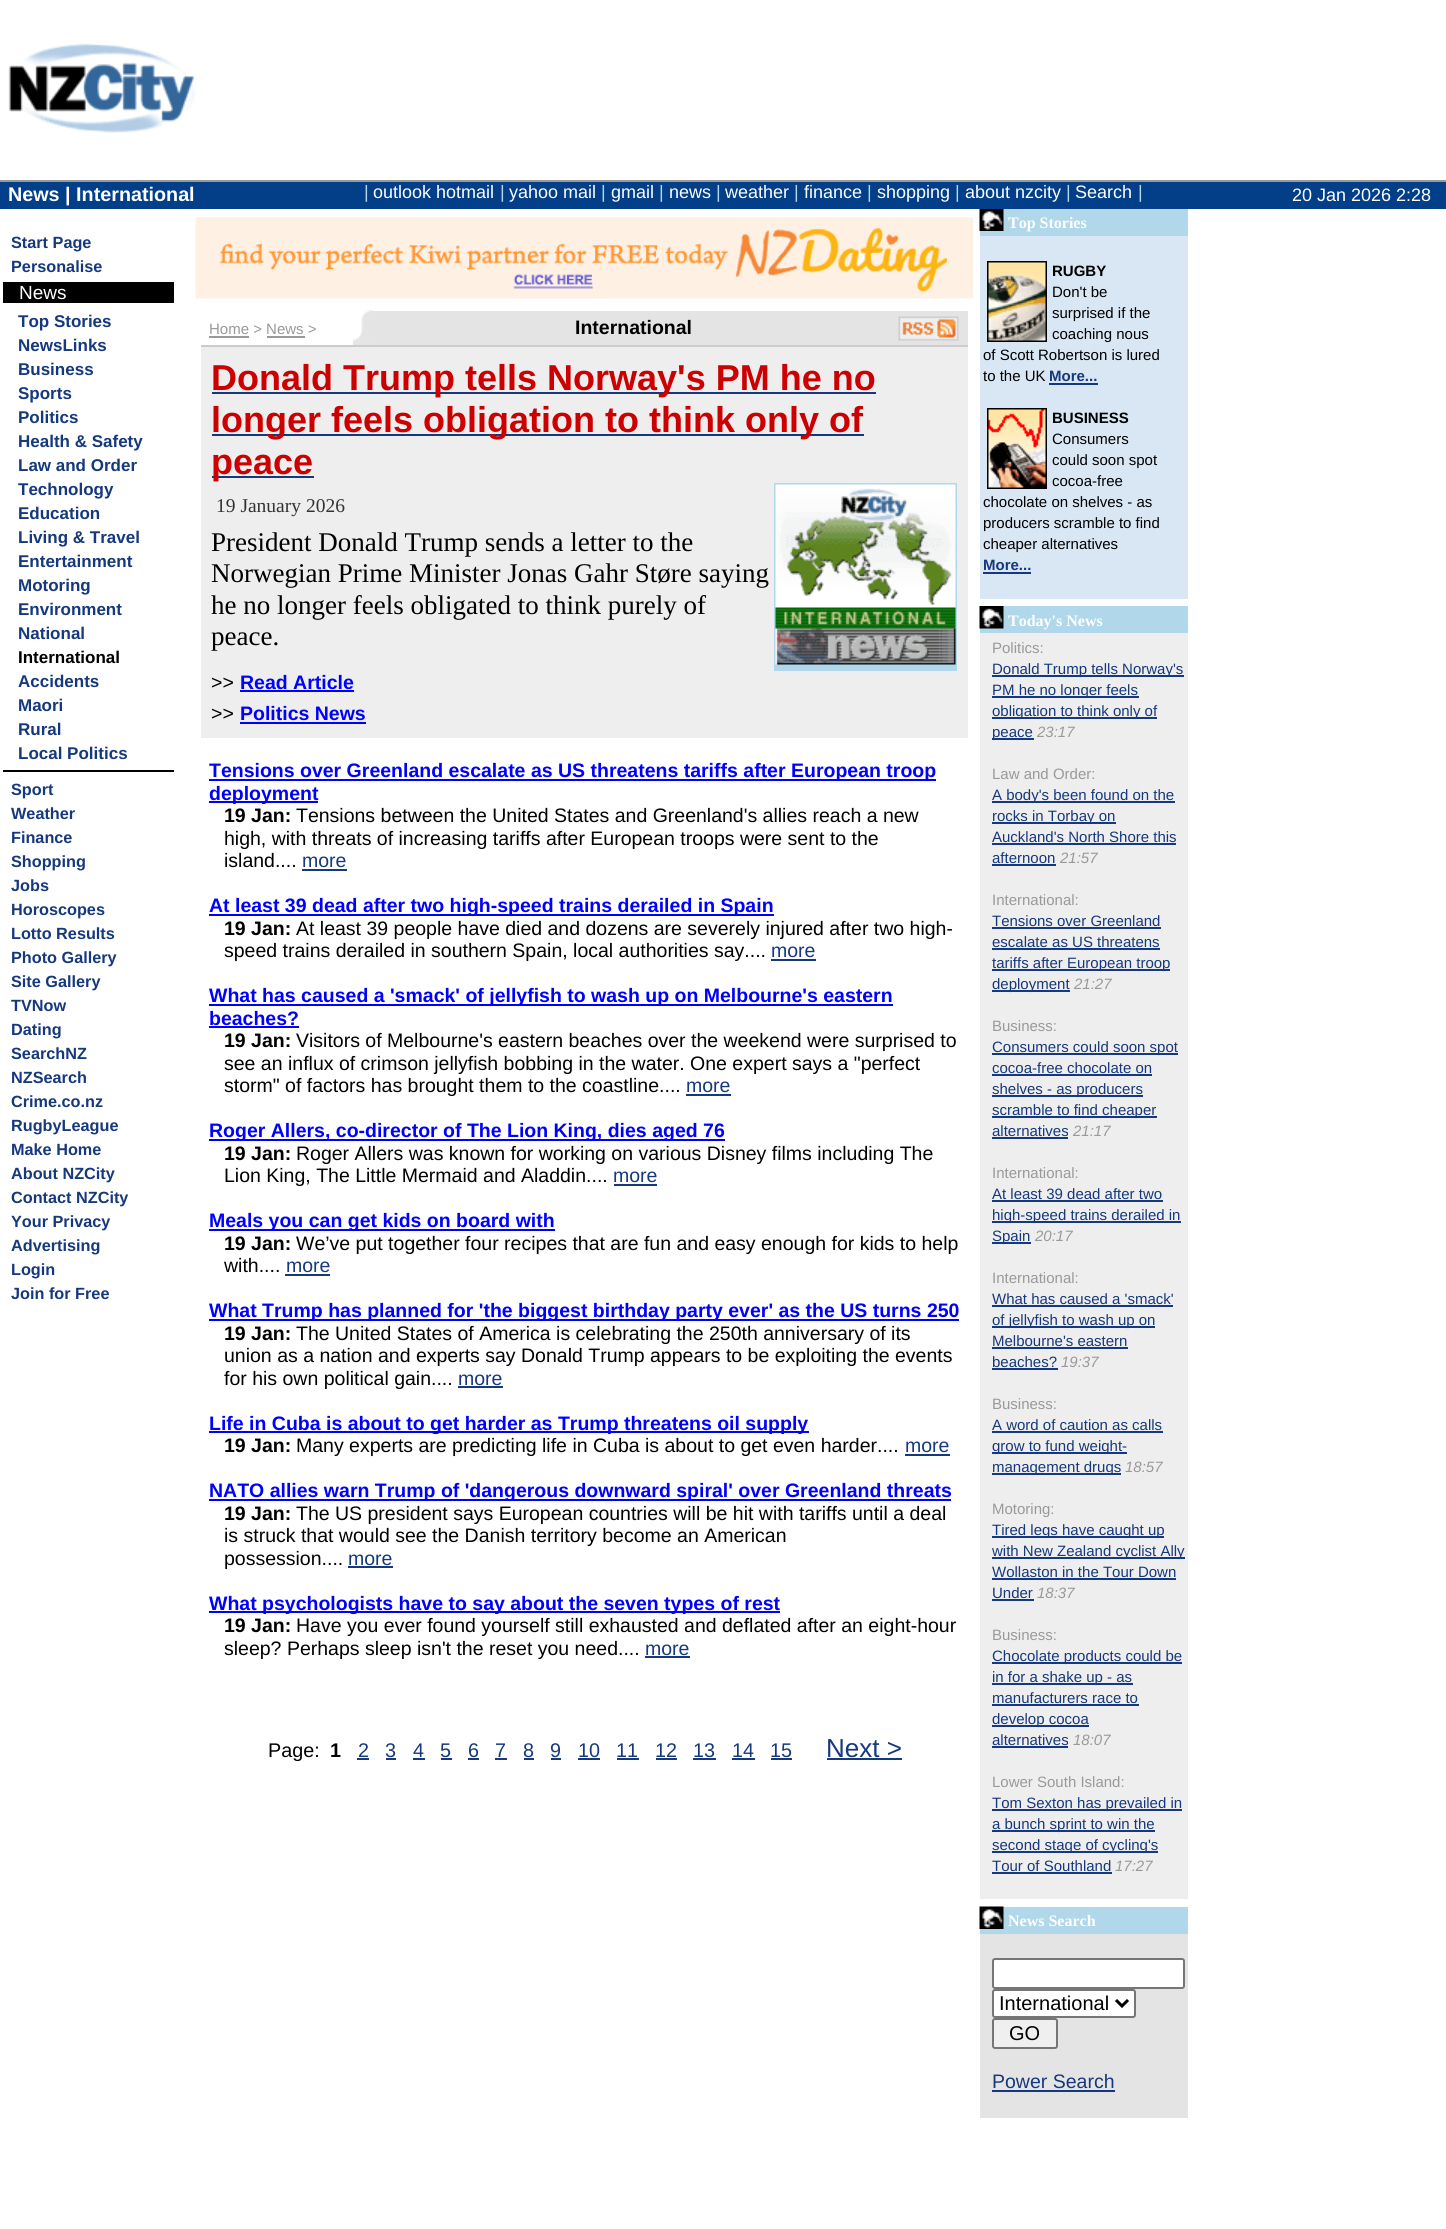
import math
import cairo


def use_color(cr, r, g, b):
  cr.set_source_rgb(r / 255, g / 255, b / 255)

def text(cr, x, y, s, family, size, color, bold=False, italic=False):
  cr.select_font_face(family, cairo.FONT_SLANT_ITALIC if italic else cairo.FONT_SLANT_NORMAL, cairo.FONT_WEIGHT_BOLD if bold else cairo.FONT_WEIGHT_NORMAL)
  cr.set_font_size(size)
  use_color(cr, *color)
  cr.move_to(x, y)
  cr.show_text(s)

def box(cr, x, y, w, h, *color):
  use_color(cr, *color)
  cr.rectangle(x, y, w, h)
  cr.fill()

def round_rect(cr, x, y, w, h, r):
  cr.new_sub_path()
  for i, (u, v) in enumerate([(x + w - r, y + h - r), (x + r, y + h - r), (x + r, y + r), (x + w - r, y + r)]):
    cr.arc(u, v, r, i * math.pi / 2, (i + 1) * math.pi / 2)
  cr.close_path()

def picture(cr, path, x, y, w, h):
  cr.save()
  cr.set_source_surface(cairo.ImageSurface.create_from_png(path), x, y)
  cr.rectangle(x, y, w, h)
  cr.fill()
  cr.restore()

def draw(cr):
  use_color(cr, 255, 255, 255)
  cr.paint()
  picture(cr, "img_01.png", 8, 43, 187, 91)
  box(cr, 0, 182, 1446, 27, 2, 63, 136)
  box(cr, 0, 180, 1446, 2, 153, 153, 153)
  box(cr, 3, 282, 171, 21, 0, 0, 0)
  box(cr, 3, 770, 171, 2, 0, 0, 0)
  picture(cr, "img_02.png", 195, 217, 778, 82)
  box(cr, 209, 336, 40, 2, 153, 153, 153)
  box(cr, 267, 336, 38, 2, 153, 153, 153)
  box(cr, 353, 340, 19, 5, 228, 228, 228)
  picture(cr, "img_03.png", 353, 310, 19, 31)
  box(cr, 372, 311, 596, 34, 228, 228, 228)
  picture(cr, "img_04.png", 898, 316, 61, 25)
  box(cr, 201, 345, 767, 2, 204, 204, 204)
  box(cr, 201, 347, 767, 391, 238, 238, 238)
  box(cr, 212, 392, 664, 2, 22, 56, 124)
  box(cr, 212, 434, 652, 2, 22, 56, 124)
  box(cr, 212, 476, 102, 2, 22, 56, 124)
  box(cr, 774, 483, 183, 188, 176, 216, 234)
  picture(cr, "img_05.png", 775, 484, 181, 181)
  box(cr, 240, 690, 114, 2, 0, 0, 255)
  box(cr, 240, 722, 126, 2, 0, 0, 255)
  box(cr, 209, 779, 727, 2, 0, 0, 255)
  box(cr, 209, 801, 109, 2, 0, 0, 255)
  box(cr, 302, 869, 45, 2, 22, 56, 124)
  box(cr, 209, 914, 565, 2, 0, 0, 255)
  box(cr, 771, 959, 45, 2, 22, 56, 124)
  box(cr, 209, 1004, 684, 2, 0, 0, 255)
  box(cr, 209, 1026, 90, 2, 0, 0, 255)
  box(cr, 686, 1094, 45, 2, 22, 56, 124)
  box(cr, 209, 1139, 516, 2, 0, 0, 255)
  box(cr, 614, 1184, 43, 2, 22, 56, 124)
  box(cr, 209, 1229, 346, 2, 0, 0, 255)
  box(cr, 285, 1274, 45, 2, 22, 56, 124)
  box(cr, 209, 1319, 750, 2, 0, 0, 255)
  box(cr, 458, 1386, 45, 2, 22, 56, 124)
  box(cr, 209, 1431, 600, 2, 0, 0, 255)
  box(cr, 905, 1454, 45, 2, 22, 56, 124)
  box(cr, 209, 1499, 742, 2, 0, 0, 255)
  box(cr, 348, 1566, 45, 2, 22, 56, 124)
  box(cr, 209, 1611, 571, 2, 0, 0, 255)
  box(cr, 645, 1656, 45, 2, 22, 56, 124)
  box(cr, 357, 1758, 12, 2, 22, 56, 124)
  box(cr, 386, 1758, 10, 2, 22, 56, 124)
  box(cr, 413, 1758, 12, 2, 22, 56, 124)
  box(cr, 441, 1758, 11, 2, 22, 56, 124)
  box(cr, 468, 1758, 11, 2, 22, 56, 124)
  box(cr, 495, 1758, 12, 2, 22, 56, 124)
  box(cr, 524, 1758, 10, 2, 22, 56, 124)
  box(cr, 551, 1758, 10, 2, 22, 56, 124)
  box(cr, 578, 1758, 22, 2, 22, 56, 124)
  box(cr, 617, 1758, 22, 2, 22, 56, 124)
  box(cr, 656, 1758, 21, 2, 22, 56, 124)
  box(cr, 693, 1758, 23, 2, 22, 56, 124)
  box(cr, 732, 1758, 23, 2, 22, 56, 124)
  box(cr, 771, 1758, 21, 2, 22, 56, 124)
  box(cr, 827, 1758, 75, 2, 22, 56, 124)
  box(cr, 980, 209, 208, 27, 176, 216, 234)
  picture(cr, "img_06.png", 979, 209, 25, 22)
  box(cr, 980, 236, 208, 363, 217, 230, 244)
  picture(cr, "img_07.png", 987, 261, 60, 81)
  box(cr, 1049, 383, 49, 2, 22, 56, 124)
  picture(cr, "img_08.png", 987, 408, 60, 81)
  box(cr, 983, 572, 48, 2, 22, 56, 124)
  box(cr, 980, 606, 208, 27, 176, 216, 234)
  picture(cr, "img_09.png", 979, 606, 25, 23)
  box(cr, 980, 633, 208, 1266, 238, 238, 238)
  box(cr, 992, 675, 192, 2, 22, 56, 124)
  box(cr, 992, 696, 147, 2, 22, 56, 124)
  box(cr, 992, 717, 165, 2, 22, 56, 124)
  box(cr, 992, 738, 42, 2, 22, 56, 124)
  box(cr, 992, 801, 183, 2, 22, 56, 124)
  box(cr, 992, 822, 124, 2, 22, 56, 124)
  box(cr, 992, 843, 184, 2, 22, 56, 124)
  box(cr, 992, 864, 64, 2, 22, 56, 124)
  box(cr, 992, 927, 169, 2, 22, 56, 124)
  box(cr, 992, 948, 168, 2, 22, 56, 124)
  box(cr, 992, 969, 178, 2, 22, 56, 124)
  box(cr, 992, 990, 78, 2, 22, 56, 124)
  box(cr, 992, 1053, 186, 2, 22, 56, 124)
  box(cr, 992, 1074, 160, 2, 22, 56, 124)
  box(cr, 992, 1095, 151, 2, 22, 56, 124)
  box(cr, 992, 1116, 165, 2, 22, 56, 124)
  box(cr, 992, 1137, 76, 2, 22, 56, 124)
  box(cr, 992, 1200, 171, 2, 22, 56, 124)
  box(cr, 992, 1221, 189, 2, 22, 56, 124)
  box(cr, 992, 1242, 39, 2, 22, 56, 124)
  box(cr, 992, 1305, 181, 2, 22, 56, 124)
  box(cr, 992, 1326, 163, 2, 22, 56, 124)
  box(cr, 992, 1347, 136, 2, 22, 56, 124)
  box(cr, 992, 1368, 66, 2, 22, 56, 124)
  box(cr, 992, 1431, 171, 2, 22, 56, 124)
  box(cr, 992, 1452, 135, 2, 22, 56, 124)
  box(cr, 992, 1473, 129, 2, 22, 56, 124)
  box(cr, 992, 1536, 172, 2, 22, 56, 124)
  box(cr, 992, 1557, 193, 2, 22, 56, 124)
  box(cr, 992, 1578, 184, 2, 22, 56, 124)
  box(cr, 992, 1599, 42, 2, 22, 56, 124)
  box(cr, 992, 1662, 190, 2, 22, 56, 124)
  box(cr, 992, 1683, 141, 2, 22, 56, 124)
  box(cr, 992, 1704, 147, 2, 22, 56, 124)
  box(cr, 992, 1725, 97, 2, 22, 56, 124)
  box(cr, 992, 1746, 76, 2, 22, 56, 124)
  box(cr, 992, 1809, 190, 2, 22, 56, 124)
  box(cr, 992, 1830, 163, 2, 22, 56, 124)
  box(cr, 992, 1851, 166, 2, 22, 56, 124)
  box(cr, 992, 1872, 120, 2, 22, 56, 124)
  box(cr, 980, 1907, 208, 27, 176, 216, 234)
  picture(cr, "img_10.png", 979, 1906, 25, 23)
  box(cr, 980, 1934, 208, 184, 228, 228, 228)
  use_color(cr, 255, 255, 255)
  round_rect(cr, 993, 1959, 191, 29, 2)
  cr.fill_preserve()
  use_color(cr, 118, 118, 118)
  cr.stroke()
  use_color(cr, 255, 255, 255)
  round_rect(cr, 993, 1990, 142, 27, 2)
  cr.fill_preserve()
  use_color(cr, 118, 118, 118)
  cr.stroke()
  cr.new_path()
  cr.move_to(1116, 2000)
  cr.line_to(1122, 2006)
  cr.line_to(1128, 2000)
  use_color(cr, 0, 0, 0)
  cr.set_line_width(3)
  cr.stroke()
  use_color(cr, 239, 239, 239)
  round_rect(cr, 993, 2019, 64, 29, 2)
  cr.fill_preserve()
  use_color(cr, 118, 118, 118)
  cr.set_line_width(2)
  cr.stroke()
  box(cr, 992, 2090, 123, 2, 22, 56, 124)
  text(cr, 8, 201, "News | International", "Liberation Sans", 19.75, (255, 255, 255), bold=True)
  text(cr, 364, 198, "|", "Liberation Sans", 18, (176, 216, 234))
  text(cr, 373, 198, "outlook hotmail", "Liberation Sans", 18, (255, 255, 255))
  text(cr, 500, 198, "|", "Liberation Sans", 18, (176, 216, 234))
  text(cr, 509, 198, "yahoo mail", "Liberation Sans", 18, (255, 255, 255))
  text(cr, 601, 198, "|", "Liberation Sans", 18, (176, 216, 234))
  text(cr, 611, 198, "gmail", "Liberation Sans", 18, (255, 255, 255))
  text(cr, 659, 198, "|", "Liberation Sans", 18, (176, 216, 234))
  text(cr, 669, 198, "news", "Liberation Sans", 18, (255, 255, 255))
  text(cr, 716, 198, "|", "Liberation Sans", 18, (176, 216, 234))
  text(cr, 725, 198, "weather", "Liberation Sans", 18, (255, 255, 255))
  text(cr, 794, 198, "|", "Liberation Sans", 18, (176, 216, 234))
  text(cr, 804, 198, "finance", "Liberation Sans", 18, (255, 255, 255))
  text(cr, 867, 198, "|", "Liberation Sans", 18, (176, 216, 234))
  text(cr, 877, 198, "shopping", "Liberation Sans", 18, (255, 255, 255))
  text(cr, 955, 198, "|", "Liberation Sans", 18, (176, 216, 234))
  text(cr, 965, 198, "about nzcity", "Liberation Sans", 18, (255, 255, 255))
  text(cr, 1066, 198, "|", "Liberation Sans", 18, (176, 216, 234))
  text(cr, 1075, 198, "Search", "Liberation Sans", 18, (255, 255, 255))
  text(cr, 1138, 198, "|", "Liberation Sans", 18, (176, 216, 234))
  text(cr, 1292, 201, "20 Jan 2026 2:28", "Liberation Sans", 18, (255, 255, 255))
  text(cr, 11, 248, "Start Page", "Liberation Sans", 16.25, (22, 56, 124), bold=True)
  text(cr, 11, 272, "Personalise", "Liberation Sans", 16.25, (22, 56, 124), bold=True)
  text(cr, 19, 299, "News", "Liberation Sans", 19, (255, 255, 255))
  text(cr, 18, 327, "Top Stories", "Liberation Sans", 17, (22, 56, 124), bold=True)
  text(cr, 18, 351, "NewsLinks", "Liberation Sans", 17, (22, 56, 124), bold=True)
  text(cr, 18, 375, "Business", "Liberation Sans", 17, (22, 56, 124), bold=True)
  text(cr, 18, 399, "Sports", "Liberation Sans", 17, (22, 56, 124), bold=True)
  text(cr, 18, 423, "Politics", "Liberation Sans", 17, (22, 56, 124), bold=True)
  text(cr, 18, 447, "Health & Safety", "Liberation Sans", 17, (22, 56, 124), bold=True)
  text(cr, 18, 471, "Law and Order", "Liberation Sans", 17, (22, 56, 124), bold=True)
  text(cr, 18, 495, "Technology", "Liberation Sans", 17, (22, 56, 124), bold=True)
  text(cr, 18, 519, "Education", "Liberation Sans", 17, (22, 56, 124), bold=True)
  text(cr, 18, 543, "Living & Travel", "Liberation Sans", 17, (22, 56, 124), bold=True)
  text(cr, 18, 567, "Entertainment", "Liberation Sans", 17, (22, 56, 124), bold=True)
  text(cr, 18, 591, "Motoring", "Liberation Sans", 17, (22, 56, 124), bold=True)
  text(cr, 18, 615, "Environment", "Liberation Sans", 17, (22, 56, 124), bold=True)
  text(cr, 18, 639, "National", "Liberation Sans", 17, (22, 56, 124), bold=True)
  text(cr, 18, 663, "International", "Liberation Sans", 17, (0, 0, 0), bold=True)
  text(cr, 18, 687, "Accidents", "Liberation Sans", 17, (22, 56, 124), bold=True)
  text(cr, 18, 711, "Maori", "Liberation Sans", 17, (22, 56, 124), bold=True)
  text(cr, 18, 735, "Rural", "Liberation Sans", 17, (22, 56, 124), bold=True)
  text(cr, 18, 759, "Local Politics", "Liberation Sans", 17, (22, 56, 124), bold=True)
  text(cr, 11, 795, "Sport", "Liberation Sans", 16.25, (22, 56, 124), bold=True)
  text(cr, 11, 819, "Weather", "Liberation Sans", 16.25, (22, 56, 124), bold=True)
  text(cr, 11, 843, "Finance", "Liberation Sans", 16.25, (22, 56, 124), bold=True)
  text(cr, 11, 867, "Shopping", "Liberation Sans", 16.25, (22, 56, 124), bold=True)
  text(cr, 11, 891, "Jobs", "Liberation Sans", 16.25, (22, 56, 124), bold=True)
  text(cr, 11, 915, "Horoscopes", "Liberation Sans", 16.25, (22, 56, 124), bold=True)
  text(cr, 11, 939, "Lotto Results", "Liberation Sans", 16.25, (22, 56, 124), bold=True)
  text(cr, 11, 963, "Photo Gallery", "Liberation Sans", 16.25, (22, 56, 124), bold=True)
  text(cr, 11, 987, "Site Gallery", "Liberation Sans", 16.25, (22, 56, 124), bold=True)
  text(cr, 11, 1011, "TVNow", "Liberation Sans", 16.25, (22, 56, 124), bold=True)
  text(cr, 11, 1035, "Dating", "Liberation Sans", 16.25, (22, 56, 124), bold=True)
  text(cr, 11, 1059, "SearchNZ", "Liberation Sans", 16.25, (22, 56, 124), bold=True)
  text(cr, 11, 1083, "NZSearch", "Liberation Sans", 16.25, (22, 56, 124), bold=True)
  text(cr, 11, 1107, "Crime.co.nz", "Liberation Sans", 16.25, (22, 56, 124), bold=True)
  text(cr, 11, 1131, "RugbyLeague", "Liberation Sans", 16.25, (22, 56, 124), bold=True)
  text(cr, 11, 1155, "Make Home", "Liberation Sans", 16.25, (22, 56, 124), bold=True)
  text(cr, 11, 1179, "About NZCity", "Liberation Sans", 16.25, (22, 56, 124), bold=True)
  text(cr, 11, 1203, "Contact NZCity", "Liberation Sans", 16.25, (22, 56, 124), bold=True)
  text(cr, 11, 1227, "Your Privacy", "Liberation Sans", 16.25, (22, 56, 124), bold=True)
  text(cr, 11, 1251, "Advertising", "Liberation Sans", 16.25, (22, 56, 124), bold=True)
  text(cr, 11, 1275, "Login", "Liberation Sans", 16.25, (22, 56, 124), bold=True)
  text(cr, 11, 1299, "Join for Free", "Liberation Sans", 16.25, (22, 56, 124), bold=True)
  text(cr, 209, 334, "Home > News >", "Liberation Sans", 15, (153, 153, 153))
  text(cr, 575, 334, "International", "Liberation Sans", 19.5, (0, 0, 0), bold=True)
  text(cr, 211, 390, "Donald Trump tells Norway's PM he no", "Liberation Sans", 36, (204, 0, 0), bold=True)
  text(cr, 211, 432, "longer feels obligation to think only of", "Liberation Sans", 36, (204, 0, 0), bold=True)
  text(cr, 211, 474, "peace", "Liberation Sans", 36, (204, 0, 0), bold=True)
  text(cr, 216, 512, "19 January 2026", "Liberation Serif", 19.5, (51, 51, 51))
  text(cr, 211, 551, "President Donald Trump sends a letter to the", "Liberation Serif", 27, (0, 0, 0))
  text(cr, 211, 582, "Norwegian Prime Minister Jonas Gahr Støre saying", "Liberation Serif", 27, (0, 0, 0))
  text(cr, 211, 614, "he no longer feels obligated to think purely of", "Liberation Serif", 27, (0, 0, 0))
  text(cr, 211, 645, "peace.", "Liberation Serif", 27, (0, 0, 0))
  text(cr, 211, 689, ">>", "Liberation Sans", 19.5, (0, 0, 0))
  text(cr, 240, 689, "Read Article", "Liberation Sans", 19.5, (0, 0, 255), bold=True)
  text(cr, 211, 720, ">>", "Liberation Sans", 19.5, (0, 0, 0))
  text(cr, 240, 720, "Politics News", "Liberation Sans", 19.5, (0, 0, 255), bold=True)
  text(cr, 209, 777, "Tensions over Greenland escalate as US threatens tariffs after European troop", "Liberation Sans", 19.5, (0, 0, 255), bold=True)
  text(cr, 209, 800, "deployment", "Liberation Sans", 19.5, (0, 0, 255), bold=True)
  text(cr, 224, 822, "19 Jan:", "Liberation Sans", 19.5, (0, 0, 0), bold=True)
  text(cr, 296, 822, "Tensions between the United States and Greenland's allies reach a new", "Liberation Sans", 19.5, (0, 0, 0))
  text(cr, 224, 845, "high, with threats of increasing tariffs after European troops were sent to the", "Liberation Sans", 19.5, (0, 0, 0))
  text(cr, 224, 867, "island....", "Liberation Sans", 19.5, (0, 0, 0))
  text(cr, 302, 867, "more", "Liberation Sans", 19.5, (22, 56, 124))
  text(cr, 209, 912, "At least 39 dead after two high-speed trains derailed in Spain", "Liberation Sans", 19.5, (0, 0, 255), bold=True)
  text(cr, 224, 935, "19 Jan:", "Liberation Sans", 19.5, (0, 0, 0), bold=True)
  text(cr, 296, 935, "At least 39 people have died and dozens are severely injured after two high-", "Liberation Sans", 19.5, (0, 0, 0))
  text(cr, 224, 957, "speed trains derailed in southern Spain, local authorities say....", "Liberation Sans", 19.5, (0, 0, 0))
  text(cr, 771, 957, "more", "Liberation Sans", 19.5, (22, 56, 124))
  text(cr, 209, 1002, "What has caused a 'smack' of jellyfish to wash up on Melbourne's eastern", "Liberation Sans", 19.5, (0, 0, 255), bold=True)
  text(cr, 209, 1025, "beaches?", "Liberation Sans", 19.5, (0, 0, 255), bold=True)
  text(cr, 224, 1047, "19 Jan:", "Liberation Sans", 19.5, (0, 0, 0), bold=True)
  text(cr, 296, 1047, "Visitors of Melbourne's eastern beaches over the weekend were surprised to", "Liberation Sans", 19.5, (0, 0, 0))
  text(cr, 224, 1070, "see an influx of crimson jellyfish bobbing in the water. One expert says a \"perfect", "Liberation Sans", 19.5, (0, 0, 0))
  text(cr, 224, 1092, "storm\" of factors has brought them to the coastline....", "Liberation Sans", 19.5, (0, 0, 0))
  text(cr, 686, 1092, "more", "Liberation Sans", 19.5, (22, 56, 124))
  text(cr, 209, 1137, "Roger Allers, co-director of The Lion King, dies aged 76", "Liberation Sans", 19.5, (0, 0, 255), bold=True)
  text(cr, 224, 1160, "19 Jan:", "Liberation Sans", 19.5, (0, 0, 0), bold=True)
  text(cr, 296, 1160, "Roger Allers was known for working on various Disney films including The", "Liberation Sans", 19.5, (0, 0, 0))
  text(cr, 224, 1182, "Lion King, The Little Mermaid and Aladdin....", "Liberation Sans", 19.5, (0, 0, 0))
  text(cr, 613, 1182, "more", "Liberation Sans", 19.5, (22, 56, 124))
  text(cr, 209, 1227, "Meals you can get kids on board with", "Liberation Sans", 19.5, (0, 0, 255), bold=True)
  text(cr, 224, 1250, "19 Jan:", "Liberation Sans", 19.5, (0, 0, 0), bold=True)
  text(cr, 296, 1250, "We’ve put together four recipes that are fun and easy enough for kids to help", "Liberation Sans", 19.5, (0, 0, 0))
  text(cr, 224, 1272, "with....", "Liberation Sans", 19.5, (0, 0, 0))
  text(cr, 286, 1272, "more", "Liberation Sans", 19.5, (22, 56, 124))
  text(cr, 209, 1317, "What Trump has planned for 'the biggest birthday party ever' as the US turns 250", "Liberation Sans", 19.5, (0, 0, 255), bold=True)
  text(cr, 224, 1340, "19 Jan:", "Liberation Sans", 19.5, (0, 0, 0), bold=True)
  text(cr, 296, 1340, "The United States of America is celebrating the 250th anniversary of its", "Liberation Sans", 19.5, (0, 0, 0))
  text(cr, 224, 1362, "union as a nation and experts say Donald Trump appears to be exploiting the events", "Liberation Sans", 19.5, (0, 0, 0))
  text(cr, 224, 1385, "for his own political gain....", "Liberation Sans", 19.5, (0, 0, 0))
  text(cr, 458, 1385, "more", "Liberation Sans", 19.5, (22, 56, 124))
  text(cr, 209, 1430, "Life in Cuba is about to get harder as Trump threatens oil supply", "Liberation Sans", 19.5, (0, 0, 255), bold=True)
  text(cr, 224, 1452, "19 Jan:", "Liberation Sans", 19.5, (0, 0, 0), bold=True)
  text(cr, 296, 1452, "Many experts are predicting life in Cuba is about to get even harder....", "Liberation Sans", 19.5, (0, 0, 0))
  text(cr, 905, 1452, "more", "Liberation Sans", 19.5, (22, 56, 124))
  text(cr, 209, 1497, "NATO allies warn Trump of 'dangerous downward spiral' over Greenland threats", "Liberation Sans", 19.5, (0, 0, 255), bold=True)
  text(cr, 224, 1520, "19 Jan:", "Liberation Sans", 19.5, (0, 0, 0), bold=True)
  text(cr, 296, 1520, "The US president says European countries will be hit with tariffs until a deal", "Liberation Sans", 19.5, (0, 0, 0))
  text(cr, 224, 1542, "is struck that would see the Danish territory become an American", "Liberation Sans", 19.5, (0, 0, 0))
  text(cr, 224, 1565, "possession....", "Liberation Sans", 19.5, (0, 0, 0))
  text(cr, 348, 1565, "more", "Liberation Sans", 19.5, (22, 56, 124))
  text(cr, 209, 1610, "What psychologists have to say about the seven types of rest", "Liberation Sans", 19.5, (0, 0, 255), bold=True)
  text(cr, 224, 1632, "19 Jan:", "Liberation Sans", 19.5, (0, 0, 0), bold=True)
  text(cr, 296, 1632, "Have you ever found yourself still exhausted and deflated after an eight-hour", "Liberation Sans", 19.5, (0, 0, 0))
  text(cr, 224, 1655, "sleep? Perhaps sleep isn't the reset you need....", "Liberation Sans", 19.5, (0, 0, 0))
  text(cr, 645, 1655, "more", "Liberation Sans", 19.5, (22, 56, 124))
  text(cr, 268, 1757, "Page:", "Liberation Sans", 19.75, (0, 0, 0))
  text(cr, 330, 1757, "1", "Liberation Sans", 19.75, (0, 0, 0), bold=True)
  text(cr, 358, 1757, "2", "Liberation Sans", 19.75, (22, 56, 124))
  text(cr, 385, 1757, "3", "Liberation Sans", 19.75, (22, 56, 124))
  text(cr, 413, 1757, "4", "Liberation Sans", 19.75, (22, 56, 124))
  text(cr, 440, 1757, "5", "Liberation Sans", 19.75, (22, 56, 124))
  text(cr, 468, 1757, "6", "Liberation Sans", 19.75, (22, 56, 124))
  text(cr, 495, 1757, "7", "Liberation Sans", 19.75, (22, 56, 124))
  text(cr, 523, 1757, "8", "Liberation Sans", 19.75, (22, 56, 124))
  text(cr, 550, 1757, "9", "Liberation Sans", 19.75, (22, 56, 124))
  text(cr, 578, 1757, "10", "Liberation Sans", 19.75, (22, 56, 124))
  text(cr, 616, 1757, "11", "Liberation Sans", 19.75, (22, 56, 124))
  text(cr, 655, 1757, "12", "Liberation Sans", 19.75, (22, 56, 124))
  text(cr, 693, 1757, "13", "Liberation Sans", 19.75, (22, 56, 124))
  text(cr, 732, 1757, "14", "Liberation Sans", 19.75, (22, 56, 124))
  text(cr, 770, 1757, "15", "Liberation Sans", 19.75, (22, 56, 124))
  text(cr, 826, 1757, "Next >", "Liberation Sans", 26, (22, 56, 124))
  text(cr, 1008, 228, "Top Stories", "Liberation Serif", 16, (255, 255, 255), bold=True)
  text(cr, 1052, 276, "RUGBY", "Liberation Sans", 15, (0, 0, 0), bold=True)
  text(cr, 1052, 297, "Don't be", "Liberation Sans", 15, (0, 0, 0))
  text(cr, 1052, 318, "surprised if the", "Liberation Sans", 15, (0, 0, 0))
  text(cr, 1052, 339, "coaching nous", "Liberation Sans", 15, (0, 0, 0))
  text(cr, 983, 360, "of Scott Robertson is lured", "Liberation Sans", 15, (0, 0, 0))
  text(cr, 983, 381, "to the UK", "Liberation Sans", 15, (0, 0, 0))
  text(cr, 1049, 381, "More...", "Liberation Sans", 15, (22, 56, 124), bold=True)
  text(cr, 1052, 423, "BUSINESS", "Liberation Sans", 15, (0, 0, 0), bold=True)
  text(cr, 1052, 444, "Consumers", "Liberation Sans", 15, (0, 0, 0))
  text(cr, 1052, 465, "could soon spot", "Liberation Sans", 15, (0, 0, 0))
  text(cr, 1052, 486, "cocoa-free", "Liberation Sans", 15, (0, 0, 0))
  text(cr, 983, 507, "chocolate on shelves - as", "Liberation Sans", 15, (0, 0, 0))
  text(cr, 983, 528, "producers scramble to find", "Liberation Sans", 15, (0, 0, 0))
  text(cr, 983, 549, "cheaper alternatives", "Liberation Sans", 15, (0, 0, 0))
  text(cr, 983, 570, "More...", "Liberation Sans", 15, (22, 56, 124), bold=True)
  text(cr, 1008, 626, "Today's News", "Liberation Serif", 16, (255, 255, 255), bold=True)
  text(cr, 992, 653, "Politics:", "Liberation Sans", 15, (153, 153, 153))
  text(cr, 992, 674, "Donald Trump tells Norway's", "Liberation Sans", 15, (22, 56, 124))
  text(cr, 992, 695, "PM he no longer feels", "Liberation Sans", 15, (22, 56, 124))
  text(cr, 992, 716, "obligation to think only of", "Liberation Sans", 15, (22, 56, 124))
  text(cr, 992, 737, "peace", "Liberation Sans", 15, (22, 56, 124))
  text(cr, 1037, 737, "23:17", "Liberation Sans", 15, (153, 153, 153), italic=True)
  text(cr, 992, 779, "Law and Order:", "Liberation Sans", 15, (153, 153, 153))
  text(cr, 992, 800, "A body's been found on the", "Liberation Sans", 15, (22, 56, 124))
  text(cr, 992, 821, "rocks in Torbay on", "Liberation Sans", 15, (22, 56, 124))
  text(cr, 992, 842, "Auckland's North Shore this", "Liberation Sans", 15, (22, 56, 124))
  text(cr, 992, 863, "afternoon", "Liberation Sans", 15, (22, 56, 124))
  text(cr, 1060, 863, "21:57", "Liberation Sans", 15, (153, 153, 153), italic=True)
  text(cr, 992, 905, "International:", "Liberation Sans", 15, (153, 153, 153))
  text(cr, 992, 926, "Tensions over Greenland", "Liberation Sans", 15, (22, 56, 124))
  text(cr, 992, 947, "escalate as US threatens", "Liberation Sans", 15, (22, 56, 124))
  text(cr, 992, 968, "tariffs after European troop", "Liberation Sans", 15, (22, 56, 124))
  text(cr, 992, 989, "deployment", "Liberation Sans", 15, (22, 56, 124))
  text(cr, 1074, 989, "21:27", "Liberation Sans", 15, (153, 153, 153), italic=True)
  text(cr, 992, 1031, "Business:", "Liberation Sans", 15, (153, 153, 153))
  text(cr, 992, 1052, "Consumers could soon spot", "Liberation Sans", 15, (22, 56, 124))
  text(cr, 992, 1073, "cocoa-free chocolate on", "Liberation Sans", 15, (22, 56, 124))
  text(cr, 992, 1094, "shelves - as producers", "Liberation Sans", 15, (22, 56, 124))
  text(cr, 992, 1115, "scramble to find cheaper", "Liberation Sans", 15, (22, 56, 124))
  text(cr, 992, 1136, "alternatives", "Liberation Sans", 15, (22, 56, 124))
  text(cr, 1073, 1136, "21:17", "Liberation Sans", 15, (153, 153, 153), italic=True)
  text(cr, 992, 1178, "International:", "Liberation Sans", 15, (153, 153, 153))
  text(cr, 992, 1199, "At least 39 dead after two", "Liberation Sans", 15, (22, 56, 124))
  text(cr, 992, 1220, "high-speed trains derailed in", "Liberation Sans", 15, (22, 56, 124))
  text(cr, 992, 1241, "Spain", "Liberation Sans", 15, (22, 56, 124))
  text(cr, 1035, 1241, "20:17", "Liberation Sans", 15, (153, 153, 153), italic=True)
  text(cr, 992, 1283, "International:", "Liberation Sans", 15, (153, 153, 153))
  text(cr, 992, 1304, "What has caused a 'smack'", "Liberation Sans", 15, (22, 56, 124))
  text(cr, 992, 1325, "of jellyfish to wash up on", "Liberation Sans", 15, (22, 56, 124))
  text(cr, 992, 1346, "Melbourne's eastern", "Liberation Sans", 15, (22, 56, 124))
  text(cr, 992, 1367, "beaches?", "Liberation Sans", 15, (22, 56, 124))
  text(cr, 1061, 1367, "19:37", "Liberation Sans", 15, (153, 153, 153), italic=True)
  text(cr, 992, 1409, "Business:", "Liberation Sans", 15, (153, 153, 153))
  text(cr, 992, 1430, "A word of caution as calls", "Liberation Sans", 15, (22, 56, 124))
  text(cr, 992, 1451, "grow to fund weight-", "Liberation Sans", 15, (22, 56, 124))
  text(cr, 992, 1472, "management drugs", "Liberation Sans", 15, (22, 56, 124))
  text(cr, 1125, 1472, "18:57", "Liberation Sans", 15, (153, 153, 153), italic=True)
  text(cr, 992, 1514, "Motoring:", "Liberation Sans", 15, (153, 153, 153))
  text(cr, 992, 1535, "Tired legs have caught up", "Liberation Sans", 15, (22, 56, 124))
  text(cr, 992, 1556, "with New Zealand cyclist Ally", "Liberation Sans", 15, (22, 56, 124))
  text(cr, 992, 1577, "Wollaston in the Tour Down", "Liberation Sans", 15, (22, 56, 124))
  text(cr, 992, 1598, "Under", "Liberation Sans", 15, (22, 56, 124))
  text(cr, 1037, 1598, "18:37", "Liberation Sans", 15, (153, 153, 153), italic=True)
  text(cr, 992, 1640, "Business:", "Liberation Sans", 15, (153, 153, 153))
  text(cr, 992, 1661, "Chocolate products could be", "Liberation Sans", 15, (22, 56, 124))
  text(cr, 992, 1682, "in for a shake up - as", "Liberation Sans", 15, (22, 56, 124))
  text(cr, 992, 1703, "manufacturers race to", "Liberation Sans", 15, (22, 56, 124))
  text(cr, 992, 1724, "develop cocoa", "Liberation Sans", 15, (22, 56, 124))
  text(cr, 992, 1745, "alternatives", "Liberation Sans", 15, (22, 56, 124))
  text(cr, 1073, 1745, "18:07", "Liberation Sans", 15, (153, 153, 153), italic=True)
  text(cr, 992, 1787, "Lower South Island:", "Liberation Sans", 15, (153, 153, 153))
  text(cr, 992, 1808, "Tom Sexton has prevailed in", "Liberation Sans", 15, (22, 56, 124))
  text(cr, 992, 1829, "a bunch sprint to win the", "Liberation Sans", 15, (22, 56, 124))
  text(cr, 992, 1850, "second stage of cycling's", "Liberation Sans", 15, (22, 56, 124))
  text(cr, 992, 1871, "Tour of Southland", "Liberation Sans", 15, (22, 56, 124))
  text(cr, 1115, 1871, "17:27", "Liberation Sans", 15, (153, 153, 153), italic=True)
  text(cr, 1008, 1926, "News Search", "Liberation Serif", 16, (255, 255, 255), bold=True)
  text(cr, 999, 2010, "International", "Liberation Sans", 20, (0, 0, 0))
  text(cr, 1009, 2040, "GO", "Liberation Sans", 20, (0, 0, 0))
  text(cr, 992, 2088, "Power Search", "Liberation Sans", 19.5, (22, 56, 124))


surface = cairo.ImageSurface(cairo.FORMAT_RGB24, 1446, 2229)
cr = cairo.Context(surface)
options = cairo.FontOptions()
options.set_hint_metrics(cairo.HINT_METRICS_OFF)
options.set_hint_style(cairo.HINT_STYLE_NONE)
cr.set_font_options(options)
cr.set_miter_limit(4)
draw(cr)
surface.write_to_png("out.png")
